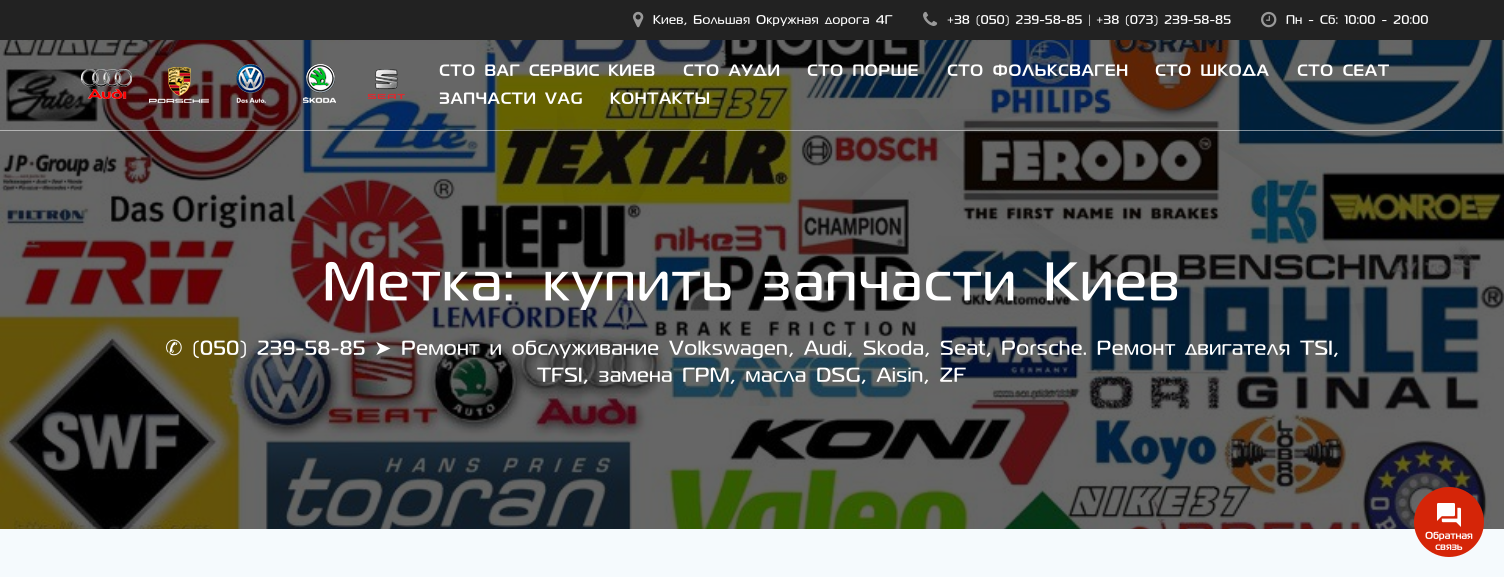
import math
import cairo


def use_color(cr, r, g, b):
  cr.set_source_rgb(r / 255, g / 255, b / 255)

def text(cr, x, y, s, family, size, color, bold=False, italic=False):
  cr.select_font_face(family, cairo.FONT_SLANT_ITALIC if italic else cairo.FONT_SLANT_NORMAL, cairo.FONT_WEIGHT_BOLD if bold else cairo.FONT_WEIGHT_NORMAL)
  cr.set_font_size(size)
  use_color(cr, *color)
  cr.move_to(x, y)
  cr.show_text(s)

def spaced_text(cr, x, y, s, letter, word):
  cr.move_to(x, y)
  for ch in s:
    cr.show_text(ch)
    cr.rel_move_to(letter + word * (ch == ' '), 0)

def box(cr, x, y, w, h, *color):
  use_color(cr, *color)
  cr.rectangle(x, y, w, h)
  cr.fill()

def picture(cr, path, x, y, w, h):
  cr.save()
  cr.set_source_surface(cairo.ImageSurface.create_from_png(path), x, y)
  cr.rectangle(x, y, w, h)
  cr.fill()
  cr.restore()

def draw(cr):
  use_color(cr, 255, 255, 255)
  cr.paint()
  box(cr, 0, 0, 1504, 40, 34, 34, 34)
  picture(cr, "img_01.png", 633, 11, 11, 17)
  picture(cr, "img_02.png", 923, 11, 15, 15)
  picture(cr, "img_03.png", 1261, 11, 16, 17)
  picture(cr, "img_05.png", 0, 40, 1504, 489)
  picture(cr, "img_06.png", 557, 109, 808, 297)
  cr.set_source_rgba(1, 1, 1, 0.5)
  cr.rectangle(0, 130, 1504, 1)
  cr.fill()
  picture(cr, "img_04.png", 81, 64, 324, 40)
  box(cr, 0, 529, 1504, 48, 245, 250, 253)
  use_color(cr, 213, 37, 8)
  cr.arc(1449, 522, 35, 0, 2 * math.pi)
  cr.fill()
  picture(cr, "img_07.png", 1437, 503, 24, 24)
  text(cr, 653, 24, "Киев, Большая Окружная дорога 4Г", "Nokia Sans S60", 12.8, (255, 255, 255))
  text(cr, 947, 24, "+38 (050) 239-58-85 | +38 (073) 239-58-85", "Nokia Sans S60", 12.8, (255, 255, 255))
  text(cr, 1286, 24, "Пн - Сб: 10:00 - 20:00", "Nokia Sans S60", 12.8, (255, 255, 255))
  cr.select_font_face("Nokia Sans S60", cairo.FONT_SLANT_NORMAL, cairo.FONT_WEIGHT_BOLD)
  cr.set_font_size(16)
  spaced_text(cr, 439, 76, "СТО ВАГ СЕРВИС КИЕВ", 1, 0)
  spaced_text(cr, 683, 76, "СТО АУДИ", 1, 0)
  spaced_text(cr, 807, 76, "СТО ПОРШЕ", 1, 0)
  spaced_text(cr, 947, 76, "СТО ФОЛЬКСВАГЕН", 1, 0)
  spaced_text(cr, 1155, 76, "СТО ШКОДА", 1, 0)
  spaced_text(cr, 1297, 76, "СТО СЕАТ", 1, 0)
  spaced_text(cr, 439, 104, "ЗАПЧАСТИ VAG", 1, 0)
  spaced_text(cr, 610, 104, "КОНТАКТЫ", 1, 0)
  cr.select_font_face("Nokia Sans S60")
  cr.set_font_size(56)
  spaced_text(cr, 323, 301, "Метка: купить запчасти Киев", 0.9, 0)
  text(cr, 165, 355, "✆ (050) 239-58-85 ➤ Ремонт и обслуживание Volkswagen, Audi, Skoda, Seat, Porsche. Ремонт двигателя TSI,", "Nokia Sans S60", 20.8, (255, 255, 255))
  text(cr, 537, 382, "TFSI, замена ГРМ, масла DSG, Aisin, ZF", "Nokia Sans S60", 20.8, (255, 255, 255))
  text(cr, 1425, 539, "Обратная", "Nokia Sans S60", 10, (255, 255, 255), bold=True)
  text(cr, 1435, 550, "связь", "Nokia Sans S60", 10, (255, 255, 255), bold=True)


surface = cairo.ImageSurface(cairo.FORMAT_RGB24, 1504, 577)
cr = cairo.Context(surface)
options = cairo.FontOptions()
options.set_hint_metrics(cairo.HINT_METRICS_OFF)
options.set_hint_style(cairo.HINT_STYLE_NONE)
cr.set_font_options(options)
cr.set_miter_limit(4)
draw(cr)
surface.write_to_png("out.png")
